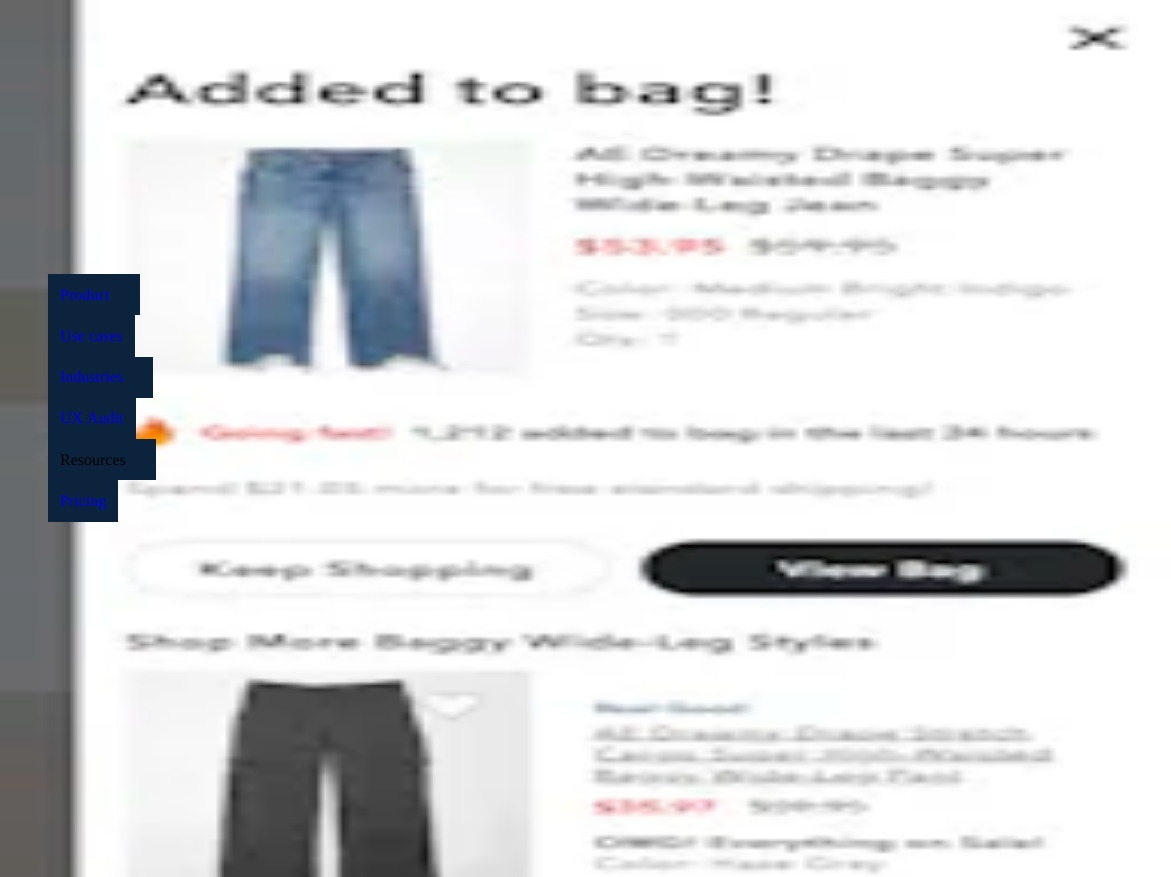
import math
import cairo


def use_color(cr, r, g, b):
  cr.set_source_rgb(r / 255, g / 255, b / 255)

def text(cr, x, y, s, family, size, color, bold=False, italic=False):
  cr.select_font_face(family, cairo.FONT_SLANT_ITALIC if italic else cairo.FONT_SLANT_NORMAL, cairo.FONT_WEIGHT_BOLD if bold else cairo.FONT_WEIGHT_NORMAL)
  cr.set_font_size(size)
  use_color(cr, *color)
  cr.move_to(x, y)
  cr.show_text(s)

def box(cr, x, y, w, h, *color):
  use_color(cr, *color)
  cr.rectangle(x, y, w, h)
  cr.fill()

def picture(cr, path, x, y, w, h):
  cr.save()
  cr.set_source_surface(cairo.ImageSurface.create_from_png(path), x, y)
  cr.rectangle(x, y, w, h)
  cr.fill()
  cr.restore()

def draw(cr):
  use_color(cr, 255, 255, 255)
  cr.paint()
  picture(cr, "img_01.png", 0, 0, 1171, 877)
  box(cr, 48, 274, 92, 41, 11, 35, 60)
  box(cr, 48, 315, 87, 42, 11, 35, 60)
  box(cr, 48, 357, 105, 41, 11, 35, 60)
  box(cr, 48, 398, 88, 41, 11, 35, 60)
  box(cr, 48, 439, 108, 41, 11, 35, 60)
  box(cr, 48, 480, 70, 42, 11, 35, 60)
  text(cr, 60, 300, "Product", "Liberation Serif", 16, (0, 0, 238))
  text(cr, 60, 341, "Use cases", "Liberation Serif", 16, (0, 0, 238))
  text(cr, 60, 382, "Industries", "Liberation Serif", 16, (0, 0, 238))
  text(cr, 60, 423, "UX Audit", "Liberation Serif", 16, (0, 0, 238))
  text(cr, 60, 465, "Resources", "Liberation Serif", 16, (0, 0, 0))
  text(cr, 60, 506, "Pricing", "Liberation Serif", 16, (0, 0, 238))


surface = cairo.ImageSurface(cairo.FORMAT_RGB24, 1171, 877)
cr = cairo.Context(surface)
options = cairo.FontOptions()
options.set_hint_metrics(cairo.HINT_METRICS_OFF)
options.set_hint_style(cairo.HINT_STYLE_NONE)
cr.set_font_options(options)
cr.set_miter_limit(4)
draw(cr)
surface.write_to_png("out.png")
